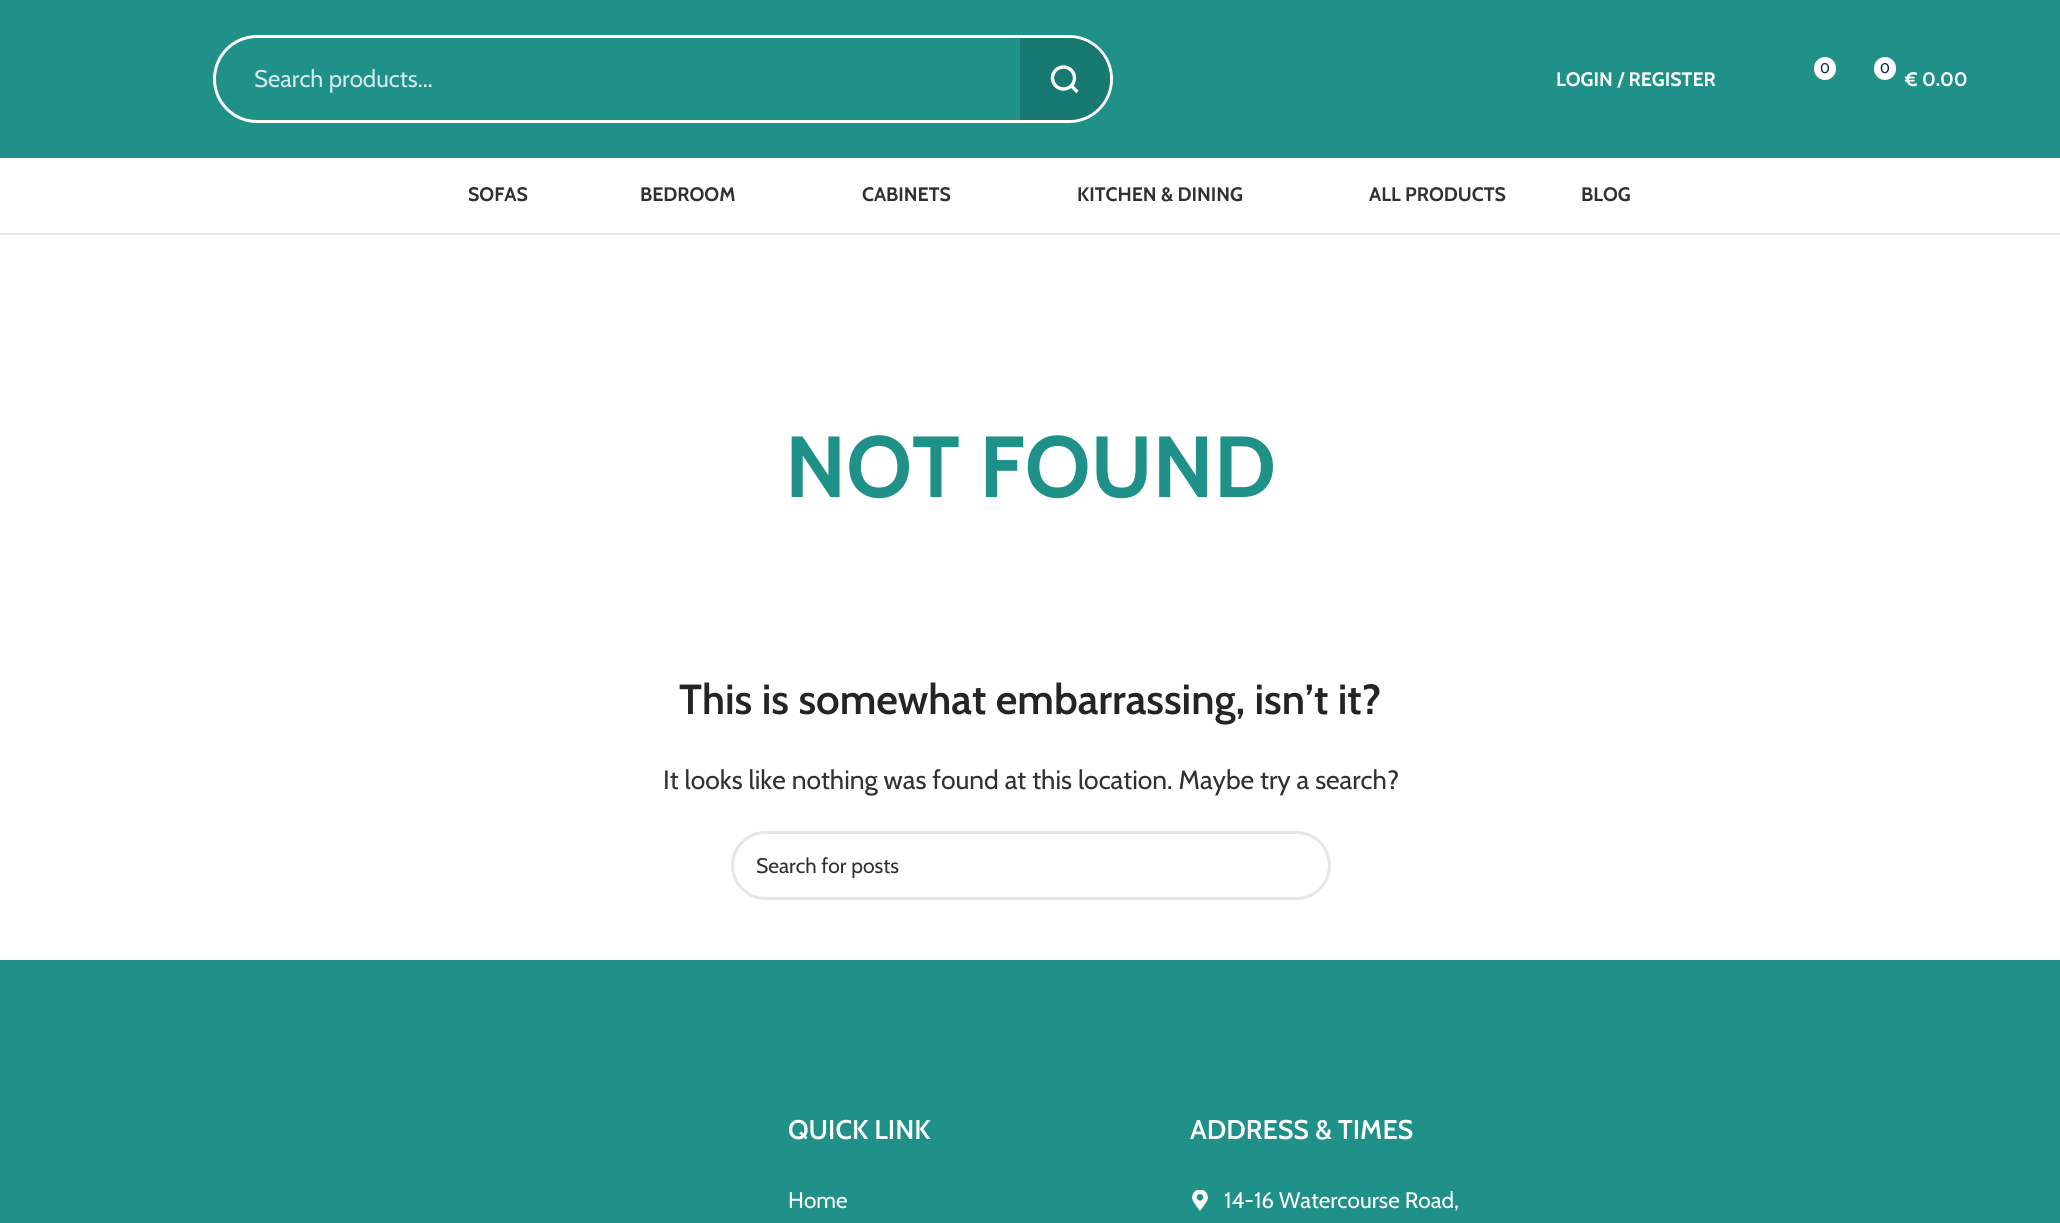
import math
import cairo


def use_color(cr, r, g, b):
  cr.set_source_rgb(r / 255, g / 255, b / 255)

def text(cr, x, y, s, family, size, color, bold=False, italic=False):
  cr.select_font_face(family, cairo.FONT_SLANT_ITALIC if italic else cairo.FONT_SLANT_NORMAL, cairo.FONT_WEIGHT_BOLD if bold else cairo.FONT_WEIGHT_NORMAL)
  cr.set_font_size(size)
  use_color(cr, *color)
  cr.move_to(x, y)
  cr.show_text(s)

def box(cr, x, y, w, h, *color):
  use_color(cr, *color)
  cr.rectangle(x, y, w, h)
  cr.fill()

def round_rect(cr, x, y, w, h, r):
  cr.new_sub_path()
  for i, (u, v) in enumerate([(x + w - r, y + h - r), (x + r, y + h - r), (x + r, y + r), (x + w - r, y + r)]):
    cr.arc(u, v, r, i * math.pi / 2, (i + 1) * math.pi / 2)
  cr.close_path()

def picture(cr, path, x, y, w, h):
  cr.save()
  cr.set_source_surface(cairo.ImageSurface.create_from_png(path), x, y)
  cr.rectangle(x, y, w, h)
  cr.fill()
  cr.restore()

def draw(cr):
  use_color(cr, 255, 255, 255)
  cr.paint()
  box(cr, 0, 0, 2060, 158, 31, 145, 136)
  round_rect(cr, 214.5, 36.5, 897, 85, 42.5)
  use_color(cr, 255, 255, 255)
  cr.set_line_width(3)
  cr.stroke()
  use_color(cr, 23, 121, 113)
  cr.new_path()
  cr.move_to(1020, 38)
  cr.line_to(1069, 38)
  cr.curve_to(1091.5, 38, 1110, 56.5, 1110, 79)
  cr.curve_to(1110, 101.5, 1091.5, 120, 1069, 120)
  cr.line_to(1020, 120)
  cr.close_path()
  cr.fill()
  cr.arc(1063.5, 78, 11, 0, 2 * math.pi)
  use_color(cr, 255, 255, 255)
  cr.set_line_width(3.4)
  cr.stroke()
  cr.new_path()
  cr.move_to(1077.5, 92)
  cr.line_to(1071.5, 86)
  cr.stroke()
  round_rect(cr, 1814, 57, 22, 23, 11)
  cr.fill()
  round_rect(cr, 1874, 57, 22, 23, 11)
  cr.fill()
  box(cr, 0, 233, 2060, 2, 230, 230, 230)
  round_rect(cr, 732.5, 832.5, 597, 66, 33)
  cr.set_line_width(3)
  cr.stroke()
  box(cr, 0, 960, 2060, 263, 31, 145, 136)
  picture(cr, "img_01.png", 1192, 1190, 16, 21)
  text(cr, 254, 87, "Search products...", "Cabin", 24, (210, 233, 231))
  text(cr, 1556, 86, "LOGIN / REGISTER", "Cabin", 19.5, (255, 255, 255), bold=True)
  text(cr, 1820, 73, "0", "Cabin", 14, (9, 33, 67))
  text(cr, 1880, 73, "0", "Cabin", 14, (9, 33, 67))
  text(cr, 1905, 86, "€ 0.00", "Cabin", 19.5, (255, 255, 255), bold=True)
  text(cr, 468, 201, "SOFAS", "Cabin", 19.5, (49, 49, 49), bold=True)
  text(cr, 640, 201, "BEDROOM", "Cabin", 19.5, (49, 49, 49), bold=True)
  text(cr, 862, 201, "CABINETS", "Cabin", 19.5, (49, 49, 49), bold=True)
  text(cr, 1077, 201, "KITCHEN & DINING", "Cabin", 19.5, (49, 49, 49), bold=True)
  text(cr, 1369, 201, "ALL PRODUCTS", "Cabin", 19.5, (49, 49, 49), bold=True)
  text(cr, 1581, 201, "BLOG", "Cabin", 19.5, (49, 49, 49), bold=True)
  text(cr, 785, 497, "NOT FOUND", "Cabin", 86.5, (31, 145, 136), bold=True)
  text(cr, 679, 714, "This is somewhat embarrassing, isn’t it?", "Cabin SemiBold", 42, (36, 36, 36))
  text(cr, 663, 789, "It looks like nothing was found at this location. Maybe try a search?", "Cabin", 26.4, (49, 49, 49))
  text(cr, 756, 873, "Search for posts", "Cabin", 21, (49, 49, 49))
  text(cr, 788, 1139, "QUICK LINK", "Cabin SemiBold", 27, (255, 255, 255))
  text(cr, 788, 1208, "Home", "Cabin", 22.5, (255, 255, 255))
  text(cr, 1190, 1139, "ADDRESS & TIMES", "Cabin SemiBold", 27, (255, 255, 255))
  text(cr, 1224, 1208, "14-16 Watercourse Road,", "Cabin", 22.5, (255, 255, 255))


surface = cairo.ImageSurface(cairo.FORMAT_RGB24, 2060, 1223)
cr = cairo.Context(surface)
options = cairo.FontOptions()
options.set_hint_metrics(cairo.HINT_METRICS_OFF)
options.set_hint_style(cairo.HINT_STYLE_NONE)
cr.set_font_options(options)
cr.set_miter_limit(4)
draw(cr)
surface.write_to_png("out.png")
